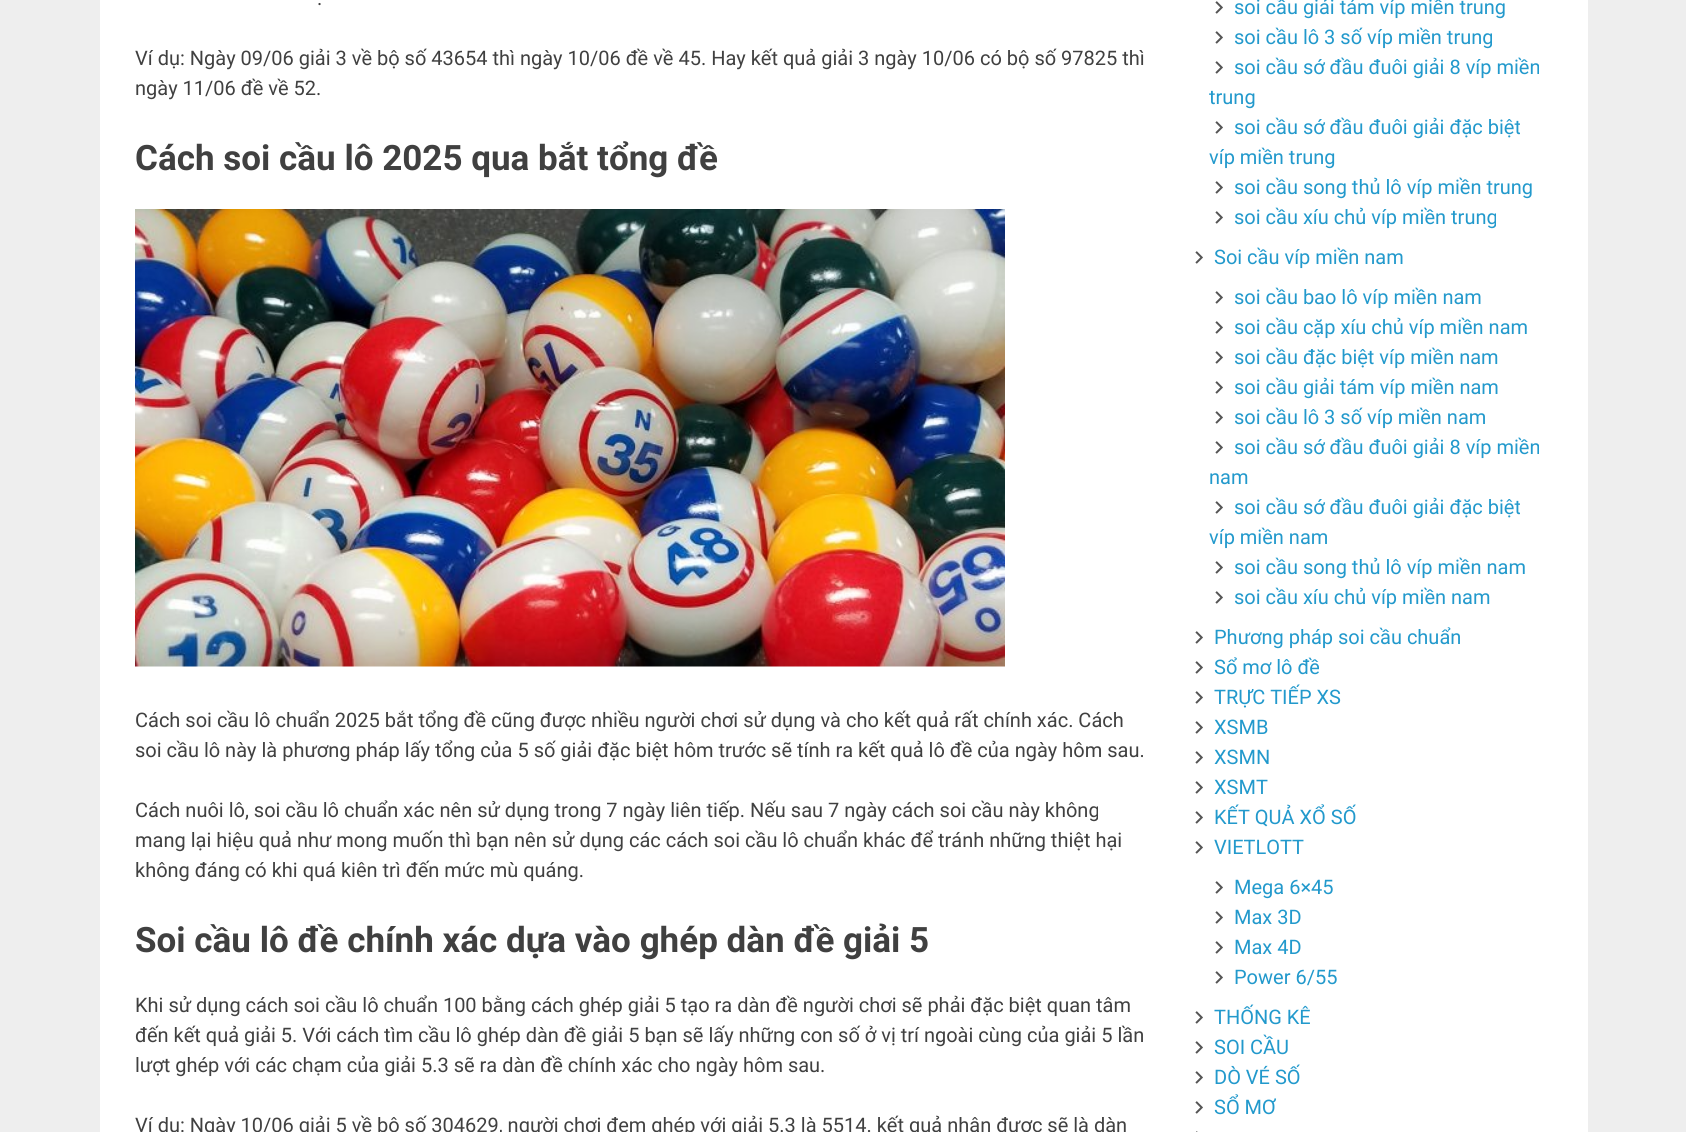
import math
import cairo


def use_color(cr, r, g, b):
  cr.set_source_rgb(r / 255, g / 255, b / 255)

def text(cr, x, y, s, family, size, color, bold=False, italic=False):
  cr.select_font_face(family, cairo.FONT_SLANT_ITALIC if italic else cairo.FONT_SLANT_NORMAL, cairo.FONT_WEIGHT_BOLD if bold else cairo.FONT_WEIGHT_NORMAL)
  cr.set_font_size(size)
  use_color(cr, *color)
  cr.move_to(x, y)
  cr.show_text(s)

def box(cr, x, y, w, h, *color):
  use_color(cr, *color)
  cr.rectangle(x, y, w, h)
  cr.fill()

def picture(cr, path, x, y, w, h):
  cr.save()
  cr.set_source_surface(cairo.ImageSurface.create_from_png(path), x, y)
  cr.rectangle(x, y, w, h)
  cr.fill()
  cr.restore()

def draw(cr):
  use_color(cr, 238, 238, 238)
  cr.paint()
  box(cr, 100, 0, 1488, 1132, 255, 255, 255)
  picture(cr, "img_01.png", 135, 209, 870, 458)
  picture(cr, "img_02.png", 1215, 1, 8, 13)
  picture(cr, "img_02.png", 1215, 31, 8, 13)
  picture(cr, "img_02.png", 1215, 61, 8, 13)
  picture(cr, "img_02.png", 1215, 121, 8, 13)
  picture(cr, "img_02.png", 1215, 181, 8, 13)
  picture(cr, "img_02.png", 1215, 211, 8, 13)
  picture(cr, "img_02.png", 1195, 251, 8, 13)
  picture(cr, "img_02.png", 1215, 291, 8, 13)
  picture(cr, "img_02.png", 1215, 321, 8, 13)
  picture(cr, "img_02.png", 1215, 351, 8, 13)
  picture(cr, "img_02.png", 1215, 381, 8, 13)
  picture(cr, "img_02.png", 1215, 411, 8, 13)
  picture(cr, "img_02.png", 1215, 441, 8, 13)
  picture(cr, "img_02.png", 1215, 501, 8, 13)
  picture(cr, "img_02.png", 1215, 561, 8, 13)
  picture(cr, "img_02.png", 1215, 591, 8, 13)
  picture(cr, "img_02.png", 1195, 631, 8, 13)
  picture(cr, "img_02.png", 1195, 661, 8, 13)
  picture(cr, "img_02.png", 1195, 691, 8, 13)
  picture(cr, "img_02.png", 1195, 721, 8, 13)
  picture(cr, "img_02.png", 1195, 751, 8, 13)
  picture(cr, "img_02.png", 1195, 781, 8, 13)
  picture(cr, "img_02.png", 1195, 811, 8, 13)
  picture(cr, "img_02.png", 1195, 841, 8, 13)
  picture(cr, "img_02.png", 1215, 881, 8, 13)
  picture(cr, "img_02.png", 1215, 911, 8, 13)
  picture(cr, "img_02.png", 1215, 941, 8, 13)
  picture(cr, "img_02.png", 1215, 971, 8, 13)
  picture(cr, "img_02.png", 1195, 1011, 8, 13)
  picture(cr, "img_02.png", 1195, 1041, 8, 13)
  picture(cr, "img_02.png", 1195, 1071, 8, 13)
  picture(cr, "img_02.png", 1195, 1101, 8, 13)
  picture(cr, "img_03.png", 1196, 1131, 2, 1)
  text(cr, 317, 5, ".", "Roboto", 20, (64, 64, 64))
  text(cr, 135, 65, "Ví dụ: Ngày 09/06 giải 3 về bộ số 43654 thì ngày 10/06 đề về 45. Hay kết quả giải 3 ngày 10/06 có bộ số 97825 thì", "Roboto", 20, (64, 64, 64))
  text(cr, 135, 95, "ngày 11/06 đề về 52.", "Roboto", 20, (64, 64, 64))
  text(cr, 135, 170, "Cách soi cầu lô 2025 qua bắt tổng đề", "Roboto", 35, (64, 64, 64), bold=True)
  text(cr, 135, 727, "Cách soi cầu lô chuẩn 2025 bắt tổng đề cũng được nhiều người chơi sử dụng và cho kết quả rất chính xác. Cách", "Roboto", 20, (64, 64, 64))
  text(cr, 135, 757, "soi cầu lô này là phương pháp lấy tổng của 5 số giải đặc biệt hôm trước sẽ tính ra kết quả lô đề của ngày hôm sau.", "Roboto", 20, (64, 64, 64))
  text(cr, 135, 817, "Cách nuôi lô, soi cầu lô chuẩn xác nên sử dụng trong 7 ngày liên tiếp. Nếu sau 7 ngày cách soi cầu này không", "Roboto", 20, (64, 64, 64))
  text(cr, 135, 847, "mang lại hiệu quả như mong muốn thì bạn nên sử dụng các cách soi cầu lô chuẩn khác để tránh những thiệt hại", "Roboto", 20, (64, 64, 64))
  text(cr, 135, 877, "không đáng có khi quá kiên trì đến mức mù quáng.", "Roboto", 20, (64, 64, 64))
  text(cr, 135, 952, "Soi cầu lô đề chính xác dựa vào ghép dàn đề giải 5", "Roboto", 35, (64, 64, 64), bold=True)
  text(cr, 135, 1012, "Khi sử dụng cách soi cầu lô chuẩn 100 bằng cách ghép giải 5 tạo ra dàn đề người chơi sẽ phải đặc biệt quan tâm", "Roboto", 20, (64, 64, 64))
  text(cr, 135, 1042, "đến kết quả giải 5. Với cách tìm cầu lô ghép dàn đề giải 5 bạn sẽ lấy những con số ở vị trí ngoài cùng của giải 5 lần", "Roboto", 20, (64, 64, 64))
  text(cr, 135, 1072, "lượt ghép với các chạm của giải 5.3 sẽ ra dàn đề chính xác cho ngày hôm sau.", "Roboto", 20, (64, 64, 64))
  text(cr, 135, 1132, "Ví dụ: Ngày 10/06 giải 5 về bộ số 304629, người chơi đem ghép với giải 5.3 là 5514. kết quả nhận được sẽ là dàn", "Roboto", 20, (64, 64, 64))
  text(cr, 1234, 14, "soi cầu giải tám víp miền trung", "Roboto", 20, (34, 153, 204))
  text(cr, 1234, 44, "soi cầu lô 3 số víp miền trung", "Roboto", 20, (34, 153, 204))
  text(cr, 1234, 74, "soi cầu sớ đầu đuôi giải 8 víp miền", "Roboto", 20, (34, 153, 204))
  text(cr, 1209, 104, "trung", "Roboto", 20, (34, 153, 204))
  text(cr, 1234, 134, "soi cầu sớ đầu đuôi giải đặc biệt", "Roboto", 20, (34, 153, 204))
  text(cr, 1209, 164, "víp miền trung", "Roboto", 20, (34, 153, 204))
  text(cr, 1234, 194, "soi cầu song thủ lô víp miền trung", "Roboto", 20, (34, 153, 204))
  text(cr, 1234, 224, "soi cầu xíu chủ víp miền trung", "Roboto", 20, (34, 153, 204))
  text(cr, 1214, 264, "Soi cầu víp miền nam", "Roboto", 20, (34, 153, 204))
  text(cr, 1234, 304, "soi cầu bao lô víp miền nam", "Roboto", 20, (34, 153, 204))
  text(cr, 1234, 334, "soi cầu cặp xíu chủ víp miền nam", "Roboto", 20, (34, 153, 204))
  text(cr, 1234, 364, "soi cầu đặc biệt víp miền nam", "Roboto", 20, (34, 153, 204))
  text(cr, 1234, 394, "soi cầu giải tám víp miền nam", "Roboto", 20, (34, 153, 204))
  text(cr, 1234, 424, "soi cầu lô 3 số víp miền nam", "Roboto", 20, (34, 153, 204))
  text(cr, 1234, 454, "soi cầu sớ đầu đuôi giải 8 víp miền", "Roboto", 20, (34, 153, 204))
  text(cr, 1209, 484, "nam", "Roboto", 20, (34, 153, 204))
  text(cr, 1234, 514, "soi cầu sớ đầu đuôi giải đặc biệt", "Roboto", 20, (34, 153, 204))
  text(cr, 1209, 544, "víp miền nam", "Roboto", 20, (34, 153, 204))
  text(cr, 1234, 574, "soi cầu song thủ lô víp miền nam", "Roboto", 20, (34, 153, 204))
  text(cr, 1234, 604, "soi cầu xíu chủ víp miền nam", "Roboto", 20, (34, 153, 204))
  text(cr, 1214, 644, "Phương pháp soi cầu chuẩn", "Roboto", 20, (34, 153, 204))
  text(cr, 1214, 674, "Sổ mơ lô đề", "Roboto", 20, (34, 153, 204))
  text(cr, 1214, 704, "TRỰC TIẾP XS", "Roboto", 20, (34, 153, 204))
  text(cr, 1214, 734, "XSMB", "Roboto", 20, (34, 153, 204))
  text(cr, 1214, 764, "XSMN", "Roboto", 20, (34, 153, 204))
  text(cr, 1214, 794, "XSMT", "Roboto", 20, (34, 153, 204))
  text(cr, 1214, 824, "KẾT QUẢ XỔ SỐ", "Roboto", 20, (34, 153, 204))
  text(cr, 1214, 854, "VIETLOTT", "Roboto", 20, (34, 153, 204))
  text(cr, 1234, 894, "Mega 6×45", "Roboto", 20, (34, 153, 204))
  text(cr, 1234, 924, "Max 3D", "Roboto", 20, (34, 153, 204))
  text(cr, 1234, 954, "Max 4D", "Roboto", 20, (34, 153, 204))
  text(cr, 1234, 984, "Power 6/55", "Roboto", 20, (34, 153, 204))
  text(cr, 1214, 1024, "THỐNG KÊ", "Roboto", 20, (34, 153, 204))
  text(cr, 1214, 1054, "SOI CẦU", "Roboto", 20, (34, 153, 204))
  text(cr, 1214, 1084, "DÒ VÉ SỐ", "Roboto", 20, (34, 153, 204))
  text(cr, 1214, 1114, "SỔ MƠ", "Roboto", 20, (34, 153, 204))


surface = cairo.ImageSurface(cairo.FORMAT_RGB24, 1686, 1132)
cr = cairo.Context(surface)
options = cairo.FontOptions()
options.set_hint_metrics(cairo.HINT_METRICS_OFF)
options.set_hint_style(cairo.HINT_STYLE_NONE)
cr.set_font_options(options)
cr.set_miter_limit(4)
draw(cr)
surface.write_to_png("out.png")
